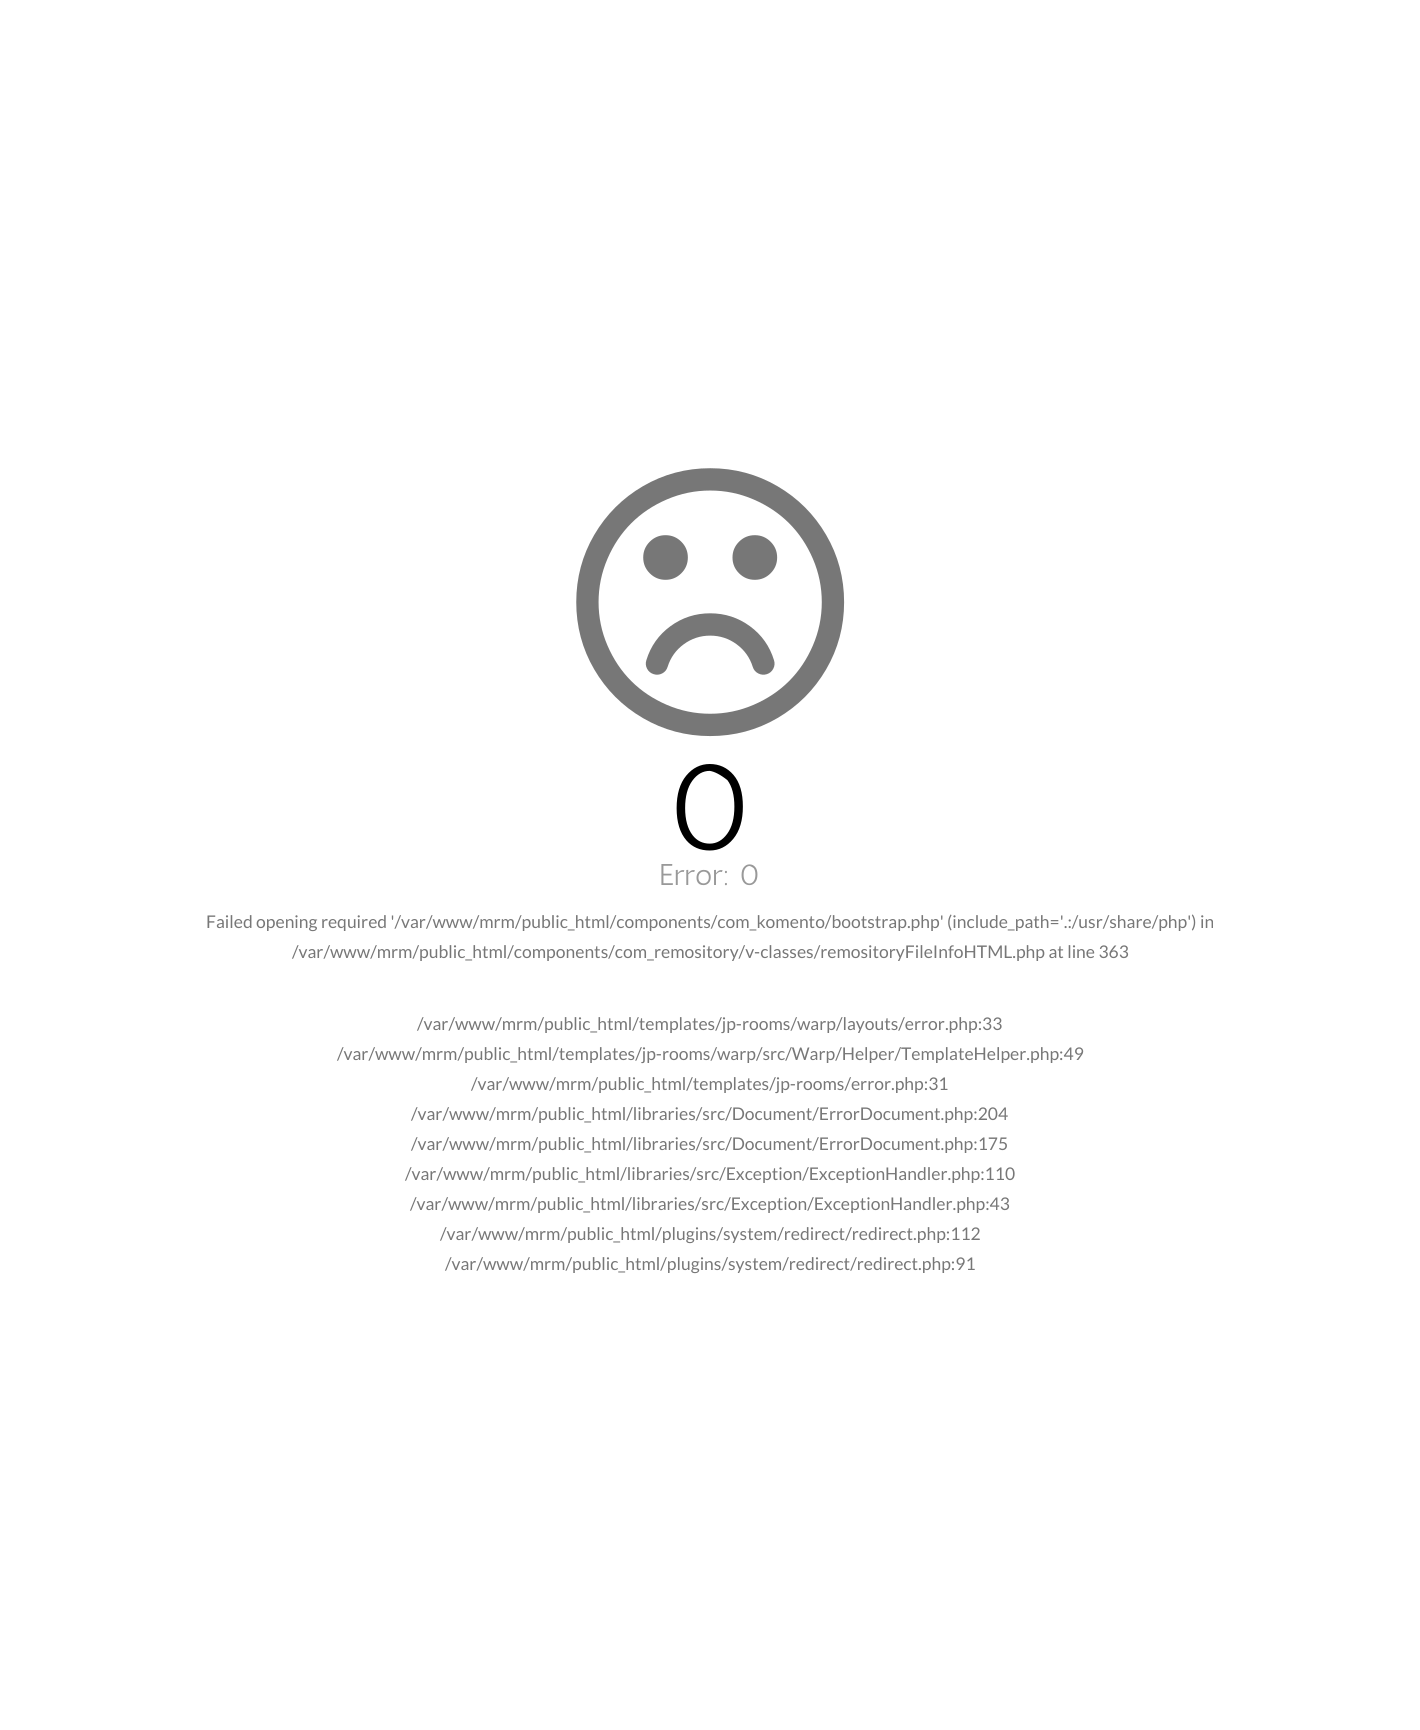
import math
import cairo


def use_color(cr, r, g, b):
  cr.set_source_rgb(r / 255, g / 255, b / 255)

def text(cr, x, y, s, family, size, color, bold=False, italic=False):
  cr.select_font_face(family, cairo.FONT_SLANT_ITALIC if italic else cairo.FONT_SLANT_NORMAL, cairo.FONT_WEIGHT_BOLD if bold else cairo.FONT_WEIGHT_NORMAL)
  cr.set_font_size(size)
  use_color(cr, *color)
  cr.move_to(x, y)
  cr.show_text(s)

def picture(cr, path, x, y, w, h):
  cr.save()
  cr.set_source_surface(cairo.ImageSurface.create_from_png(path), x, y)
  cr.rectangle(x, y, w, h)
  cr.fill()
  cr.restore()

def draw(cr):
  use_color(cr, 255, 255, 255)
  cr.paint()
  picture(cr, "img_01.png", 576, 468, 269, 269)
  text(cr, 666, 850, "0", "Antic", 125, (0, 0, 0))
  text(cr, 659, 885, "Error: 0", "Antic", 30, (153, 153, 153))
  text(cr, 206, 928, "Failed opening required '/var/www/mrm/public_html/components/com_komento/bootstrap.php' (include_path='.:/usr/share/php') in", "Lato", 17.5, (119, 119, 119))
  text(cr, 292, 958, "/var/www/mrm/public_html/components/com_remository/v-classes/remositoryFileInfoHTML.php at line 363", "Lato", 17.5, (119, 119, 119))
  text(cr, 417, 1030, "/var/www/mrm/public_html/templates/jp-rooms/warp/layouts/error.php:33", "Lato", 17.5, (119, 119, 119))
  text(cr, 337, 1060, "/var/www/mrm/public_html/templates/jp-rooms/warp/src/Warp/Helper/TemplateHelper.php:49", "Lato", 17.5, (119, 119, 119))
  text(cr, 471, 1090, "/var/www/mrm/public_html/templates/jp-rooms/error.php:31", "Lato", 17.5, (119, 119, 119))
  text(cr, 411, 1120, "/var/www/mrm/public_html/libraries/src/Document/ErrorDocument.php:204", "Lato", 17.5, (119, 119, 119))
  text(cr, 411, 1150, "/var/www/mrm/public_html/libraries/src/Document/ErrorDocument.php:175", "Lato", 17.5, (119, 119, 119))
  text(cr, 405, 1180, "/var/www/mrm/public_html/libraries/src/Exception/ExceptionHandler.php:110", "Lato", 17.5, (119, 119, 119))
  text(cr, 410, 1210, "/var/www/mrm/public_html/libraries/src/Exception/ExceptionHandler.php:43", "Lato", 17.5, (119, 119, 119))
  text(cr, 440, 1240, "/var/www/mrm/public_html/plugins/system/redirect/redirect.php:112", "Lato", 17.5, (119, 119, 119))
  text(cr, 445, 1270, "/var/www/mrm/public_html/plugins/system/redirect/redirect.php:91", "Lato", 17.5, (119, 119, 119))


surface = cairo.ImageSurface(cairo.FORMAT_RGB24, 1420, 1730)
cr = cairo.Context(surface)
options = cairo.FontOptions()
options.set_hint_metrics(cairo.HINT_METRICS_OFF)
options.set_hint_style(cairo.HINT_STYLE_NONE)
cr.set_font_options(options)
cr.set_miter_limit(4)
draw(cr)
surface.write_to_png("out.png")
